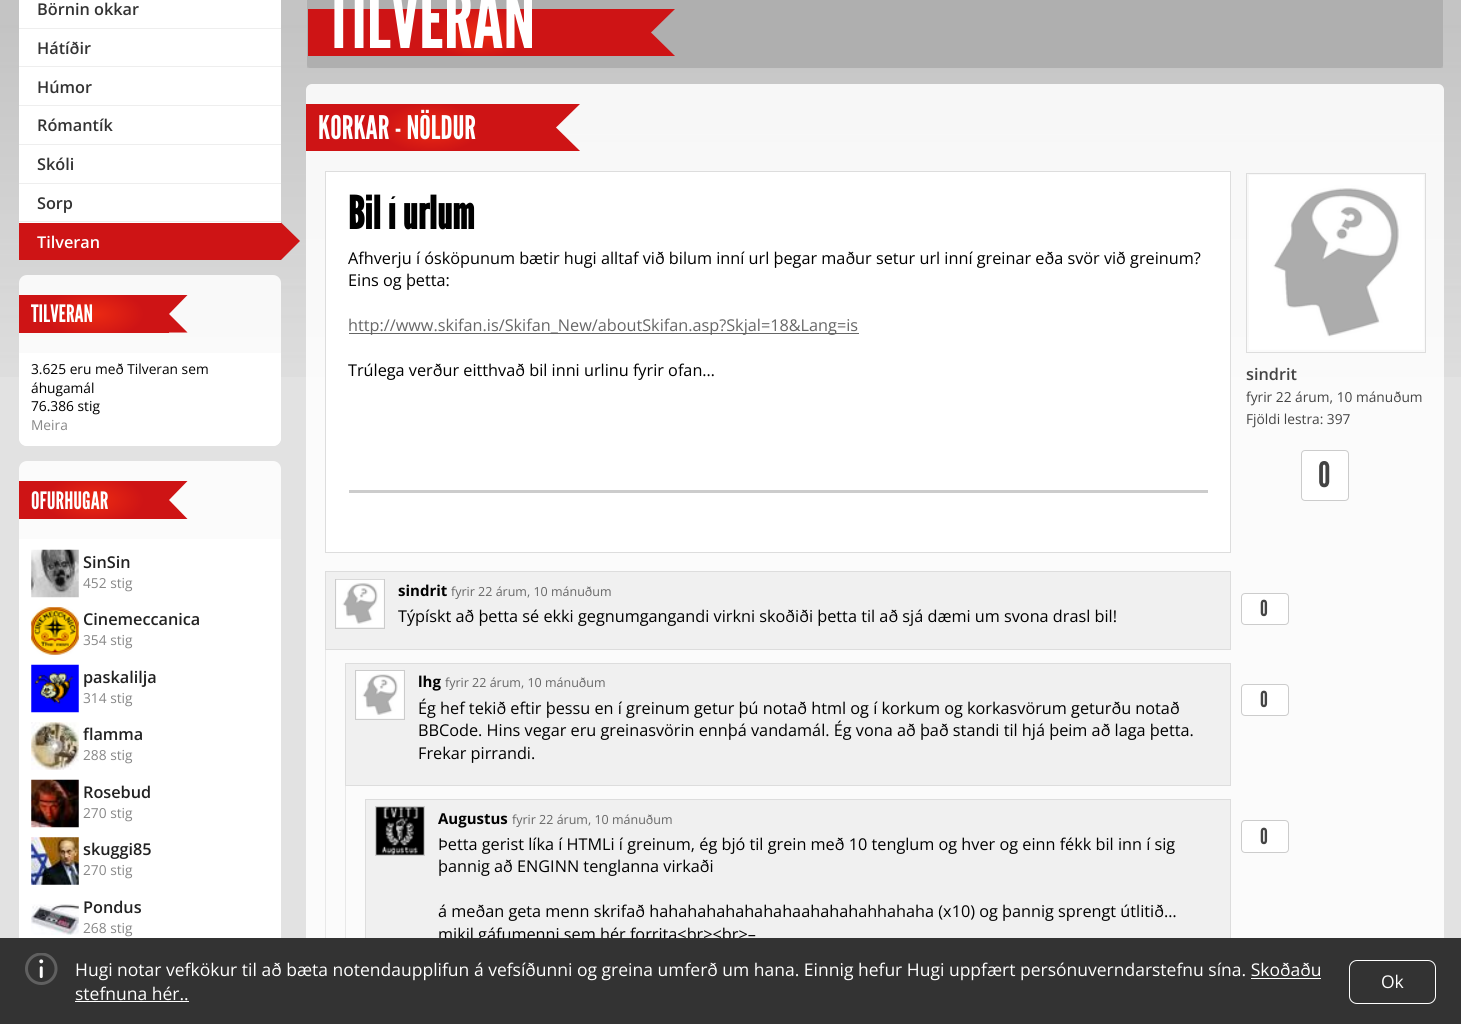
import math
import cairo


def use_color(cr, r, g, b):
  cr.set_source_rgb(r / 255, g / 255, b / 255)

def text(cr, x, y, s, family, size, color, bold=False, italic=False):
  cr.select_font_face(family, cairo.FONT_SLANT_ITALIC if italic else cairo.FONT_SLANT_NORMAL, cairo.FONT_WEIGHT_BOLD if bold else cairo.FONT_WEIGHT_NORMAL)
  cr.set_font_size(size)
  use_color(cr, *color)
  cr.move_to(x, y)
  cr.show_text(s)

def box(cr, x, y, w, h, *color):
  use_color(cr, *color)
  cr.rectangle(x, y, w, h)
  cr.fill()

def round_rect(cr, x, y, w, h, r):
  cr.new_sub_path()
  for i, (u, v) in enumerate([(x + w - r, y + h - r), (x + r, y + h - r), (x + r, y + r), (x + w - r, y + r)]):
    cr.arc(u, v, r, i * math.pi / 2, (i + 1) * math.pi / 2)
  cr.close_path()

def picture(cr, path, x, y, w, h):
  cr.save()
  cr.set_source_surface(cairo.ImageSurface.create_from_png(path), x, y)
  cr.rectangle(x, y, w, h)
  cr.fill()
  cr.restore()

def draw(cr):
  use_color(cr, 226, 226, 226)
  cr.paint()
  picture(cr, "img_01.png", 0, 0, 1461, 377)
  box(cr, 307, 0, 1136, 68, 175, 175, 175)
  round_rect(cr, 306.5, -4.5, 1137, 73, 3.5)
  cr.set_source_rgba(0.776, 0.776, 0.776, 0.5)
  cr.set_line_width(1)
  cr.stroke()
  gradient = cairo.RadialGradient(0, 0, 0, 0, 0, 1)
  gradient.set_matrix(cairo.Matrix(1 / 50, 0, 0, 1 / 25, -1 * 479 / 50, -1 * 33 / 25))
  gradient.add_color_stop_rgba(0, 0.925, 0.165, 0.071, 1)
  gradient.add_color_stop_rgba(1, 0.808, 0.078, 0.082, 1)
  cr.set_source(gradient)
  cr.rectangle(308, 9, 343, 47)
  cr.fill()
  use_color(cr, 206, 20, 21)
  cr.new_path()
  cr.move_to(651, 9)
  cr.line_to(675, 9)
  cr.line_to(651, 32.5)
  cr.close_path()
  cr.fill()
  cr.new_path()
  cr.move_to(675, 56)
  cr.line_to(651, 56)
  cr.line_to(651, 32.5)
  cr.close_path()
  cr.fill()
  box(cr, 19, 0, 262, 223, 255, 255, 255)
  box(cr, 19, 28, 262, 1, 238, 238, 238)
  box(cr, 19, 66, 262, 1, 238, 238, 238)
  box(cr, 19, 105, 262, 1, 238, 238, 238)
  box(cr, 19, 144, 262, 1, 238, 238, 238)
  box(cr, 19, 183, 262, 1, 238, 238, 238)
  box(cr, 19, 221, 262, 1, 238, 238, 238)
  box(cr, 19, 223, 262, 37, 206, 20, 21)
  cr.new_path()
  cr.move_to(281, 260)
  cr.line_to(281, 222.5)
  cr.line_to(300, 241)
  cr.close_path()
  cr.fill()
  cr.set_source_rgba(1, 1, 1, 0.85)
  round_rect(cr, 19, 275, 262, 171, 8)
  cr.fill()
  gradient = cairo.RadialGradient(0, 0, 0, 0, 0, 1)
  gradient.set_matrix(cairo.Matrix(1 / 50, 0, 0, 1 / 25, -1 * 94 / 50, -1 * 314 / 25))
  gradient.add_color_stop_rgba(0, 0.925, 0.165, 0.071, 1)
  gradient.add_color_stop_rgba(1, 0.808, 0.078, 0.082, 1)
  cr.set_source(gradient)
  cr.rectangle(19, 295, 150, 38)
  cr.fill()
  use_color(cr, 206, 20, 21)
  cr.new_path()
  cr.move_to(169, 295)
  cr.line_to(187.5, 295)
  cr.line_to(169, 314)
  cr.close_path()
  cr.move_to(187.5, 332.5)
  cr.line_to(169, 332.5)
  cr.line_to(169, 314)
  cr.close_path()
  cr.fill()
  use_color(cr, 255, 255, 255)
  cr.new_path()
  cr.move_to(19, 353)
  cr.line_to(281, 353)
  cr.line_to(281, 438)
  cr.curve_to(281, 442.5, 277.5, 446, 273, 446)
  cr.line_to(27, 446)
  cr.curve_to(22.5, 446, 19, 442.5, 19, 438)
  cr.close_path()
  cr.fill()
  use_color(cr, 251, 251, 251)
  round_rect(cr, 19, 461, 262, 499, 8)
  cr.fill()
  gradient = cairo.RadialGradient(0, 0, 0, 0, 0, 1)
  gradient.set_matrix(cairo.Matrix(1 / 50, 0, 0, 1 / 25, -1 * 94 / 50, -1 * 500 / 25))
  gradient.add_color_stop_rgba(0, 0.925, 0.165, 0.071, 1)
  gradient.add_color_stop_rgba(1, 0.808, 0.078, 0.082, 1)
  cr.set_source(gradient)
  cr.rectangle(19, 481, 150, 38)
  cr.fill()
  use_color(cr, 206, 20, 21)
  cr.new_path()
  cr.move_to(169, 481)
  cr.line_to(187.5, 481)
  cr.line_to(169, 500)
  cr.close_path()
  cr.move_to(187.5, 519)
  cr.line_to(169, 519)
  cr.line_to(169, 500)
  cr.close_path()
  cr.fill()
  box(cr, 19, 539, 262, 399, 255, 255, 255)
  picture(cr, "img_02.png", 31, 549, 48, 49)
  picture(cr, "img_03.png", 31, 607, 48, 48)
  picture(cr, "img_04.png", 31, 664, 48, 49)
  picture(cr, "img_05.png", 31, 722, 48, 48)
  picture(cr, "img_06.png", 31, 779, 48, 49)
  picture(cr, "img_07.png", 31, 837, 48, 48)
  picture(cr, "img_08.png", 31, 904, 48, 31)
  cr.set_source_rgba(1, 1, 1, 0.85)
  round_rect(cr, 306, 84, 1138, 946, 6)
  cr.fill()
  gradient = cairo.RadialGradient(0, 0, 0, 0, 0, 1)
  gradient.set_matrix(cairo.Matrix(1 / 50, 0, 0, 1 / 25, -1 * 431 / 50, -1 * 128 / 25))
  gradient.add_color_stop_rgba(0, 0.925, 0.165, 0.071, 1)
  gradient.add_color_stop_rgba(1, 0.808, 0.078, 0.082, 1)
  cr.set_source(gradient)
  cr.rectangle(306, 104, 250, 47)
  cr.fill()
  use_color(cr, 206, 20, 21)
  cr.new_path()
  cr.move_to(556, 104)
  cr.line_to(580, 104)
  cr.line_to(556, 127.5)
  cr.close_path()
  cr.fill()
  cr.new_path()
  cr.move_to(580, 151)
  cr.line_to(556, 151)
  cr.line_to(556, 127.5)
  cr.close_path()
  cr.fill()
  use_color(cr, 255, 255, 255)
  cr.rectangle(325.5, 171.5, 905, 381)
  cr.fill_preserve()
  use_color(cr, 221, 221, 221)
  cr.stroke()
  box(cr, 349, 333, 510, 1, 102, 102, 102)
  cr.rectangle(1246.5, 173.5, 179, 179)
  use_color(cr, 221, 221, 221)
  cr.stroke()
  picture(cr, "img_09.png", 1249, 175, 175, 175)
  use_color(cr, 255, 255, 255)
  round_rect(cr, 1301.5, 450.5, 47, 50, 3.5)
  cr.fill_preserve()
  use_color(cr, 204, 204, 204)
  cr.stroke()
  box(cr, 349, 490, 859, 3, 204, 204, 204)
  box(cr, 325, 650, 1, 288, 232, 232, 232)
  use_color(cr, 240, 240, 240)
  cr.rectangle(325.5, 571.5, 905, 78)
  cr.fill_preserve()
  use_color(cr, 221, 221, 221)
  cr.stroke()
  cr.rectangle(335.5, 579.5, 49, 49)
  use_color(cr, 204, 204, 204)
  cr.stroke()
  picture(cr, "img_10.png", 336, 579, 48, 48)
  use_color(cr, 255, 255, 255)
  round_rect(cr, 1241.5, 593.5, 47, 31, 3.5)
  cr.fill_preserve()
  use_color(cr, 204, 204, 204)
  cr.stroke()
  box(cr, 345, 786, 1, 152, 232, 232, 232)
  use_color(cr, 240, 240, 240)
  cr.rectangle(345.5, 663.5, 885, 122)
  cr.fill_preserve()
  use_color(cr, 221, 221, 221)
  cr.stroke()
  cr.rectangle(355.5, 670.5, 49, 49)
  use_color(cr, 204, 204, 204)
  cr.stroke()
  picture(cr, "img_11.png", 356, 671, 48, 48)
  use_color(cr, 255, 255, 255)
  round_rect(cr, 1241.5, 684.5, 47, 31, 3.5)
  cr.fill_preserve()
  use_color(cr, 204, 204, 204)
  cr.stroke()
  box(cr, 366, 800, 864, 138, 240, 240, 240)
  cr.rectangle(365.5, 799.5, 865, 218)
  use_color(cr, 221, 221, 221)
  cr.stroke()
  cr.rectangle(375.5, 806.5, 49, 49)
  use_color(cr, 204, 204, 204)
  cr.stroke()
  picture(cr, "img_12.png", 376, 807, 48, 48)
  use_color(cr, 255, 255, 255)
  round_rect(cr, 1241.5, 820.5, 47, 32, 3.5)
  cr.fill_preserve()
  use_color(cr, 204, 204, 204)
  cr.stroke()
  text(cr, 326, 48, "TILVERAN", "League Gothic", 81, (255, 255, 255))
  text(cr, 37, 15, "Börnin okkar", "Open Sans SemiBold", 16.25, (51, 51, 51))
  text(cr, 37, 54, "Hátíðir", "Open Sans SemiBold", 16.25, (51, 51, 51))
  text(cr, 37, 93, "Húmor", "Open Sans SemiBold", 16.25, (51, 51, 51))
  text(cr, 37, 131, "Rómantík", "Open Sans SemiBold", 16.25, (51, 51, 51))
  text(cr, 37, 170, "Skóli", "Open Sans SemiBold", 16.25, (51, 51, 51))
  text(cr, 37, 209, "Sorp", "Open Sans SemiBold", 16.25, (51, 51, 51))
  text(cr, 37, 248, "Tilveran", "Open Sans SemiBold", 16.25, (255, 255, 255))
  text(cr, 31, 322, "TILVERAN", "League Gothic", 24, (255, 255, 255))
  text(cr, 31, 374, "3.625 eru með Tilveran sem", "Open Sans", 13.75, (0, 0, 0))
  text(cr, 31, 393, "áhugamál", "Open Sans", 13.75, (0, 0, 0))
  text(cr, 31, 411, "76.386 stig", "Open Sans", 13.75, (0, 0, 0))
  text(cr, 31, 430, "Meira", "Open Sans", 13.75, (136, 136, 136))
  text(cr, 31, 509, "OFURHUGAR", "League Gothic", 24, (255, 255, 255))
  text(cr, 83, 568, "SinSin", "Open Sans SemiBold", 16.25, (34, 34, 34))
  text(cr, 83, 588, "452 stig", "Open Sans", 13.75, (136, 136, 136))
  text(cr, 83, 625, "Cinemeccanica", "Open Sans SemiBold", 16.25, (34, 34, 34))
  text(cr, 83, 645, "354 stig", "Open Sans", 13.75, (136, 136, 136))
  text(cr, 83, 683, "paskalilja", "Open Sans SemiBold", 16.25, (34, 34, 34))
  text(cr, 83, 703, "314 stig", "Open Sans", 13.75, (136, 136, 136))
  text(cr, 83, 740, "flamma", "Open Sans SemiBold", 16.25, (34, 34, 34))
  text(cr, 83, 760, "288 stig", "Open Sans", 13.75, (136, 136, 136))
  text(cr, 83, 798, "Rosebud", "Open Sans SemiBold", 16.25, (34, 34, 34))
  text(cr, 83, 818, "270 stig", "Open Sans", 13.75, (136, 136, 136))
  text(cr, 83, 855, "skuggi85", "Open Sans SemiBold", 16.25, (34, 34, 34))
  text(cr, 83, 875, "270 stig", "Open Sans", 13.75, (136, 136, 136))
  text(cr, 83, 913, "Pondus", "Open Sans SemiBold", 16.25, (34, 34, 34))
  text(cr, 83, 933, "268 stig", "Open Sans", 13.75, (136, 136, 136))
  text(cr, 318, 139, "KORKAR - NÖLDUR", "League Gothic", 32.5, (255, 255, 255))
  text(cr, 348, 229, "Bil í urlum", "League Gothic", 45, (0, 0, 0), bold=True)
  text(cr, 348, 264, "Afhverju í ósköpunum bætir hugi alltaf við bilum inní url þegar maður setur url inní greinar eða svör við greinum?", "Open Sans", 16.25, (0, 0, 0))
  text(cr, 348, 286, "Eins og þetta:", "Open Sans", 16.25, (0, 0, 0))
  text(cr, 348, 331, "http://www.skifan.is/Skifan_New/aboutSkifan.asp?Skjal=18&Lang=is", "Open Sans", 16.25, (102, 102, 102))
  text(cr, 348, 376, "Trúlega verður eitthvað bil inni urlinu fyrir ofan…", "Open Sans", 16.25, (0, 0, 0))
  text(cr, 1246, 380, "sindrit", "Open Sans SemiBold", 16.25, (68, 68, 68))
  text(cr, 1246, 402, "fyrir 22 árum, 10 mánuðum", "Open Sans", 13.75, (68, 68, 68))
  text(cr, 1246, 424, "Fjöldi lestra: 397", "Open Sans", 13.75, (68, 68, 68))
  text(cr, 1318, 487, "0", "League Gothic", 35, (68, 68, 68))
  text(cr, 398, 596, "sindrit", "Open Sans", 15, (0, 0, 0), bold=True)
  text(cr, 451, 596, "fyrir 22 árum, 10 mánuðum", "Open Sans", 12.5, (102, 102, 102))
  text(cr, 398, 622, "Týpískt að þetta sé ekki gegnumgangandi virkni skoðiði þetta til að sjá dæmi um svona drasl bil!", "Open Sans", 16.25, (0, 0, 0))
  text(cr, 1260, 616, "0", "League Gothic", 22, (68, 68, 68))
  text(cr, 418, 687, "lhg", "Open Sans", 15, (0, 0, 0), bold=True)
  text(cr, 445, 687, "fyrir 22 árum, 10 mánuðum", "Open Sans", 12.5, (102, 102, 102))
  text(cr, 418, 714, "Ég hef tekið eftir þessu en í greinum getur þú notað html og í korkum og korkasvörum geturðu notað", "Open Sans", 16.25, (0, 0, 0))
  text(cr, 418, 736, "BBCode. Hins vegar eru greinasvörin ennþá vandamál. Ég vona að það standi til hjá þeim að laga þetta.", "Open Sans", 16.25, (0, 0, 0))
  text(cr, 418, 759, "Frekar pirrandi.", "Open Sans", 16.25, (0, 0, 0))
  text(cr, 1260, 707, "0", "League Gothic", 22, (68, 68, 68))
  text(cr, 438, 824, "Augustus", "Open Sans", 15, (0, 0, 0), bold=True)
  text(cr, 512, 824, "fyrir 22 árum, 10 mánuðum", "Open Sans", 12.5, (102, 102, 102))
  text(cr, 438, 850, "Þetta gerist líka í HTMLi í greinum, ég bjó til grein með 10 tenglum og hver og einn fékk bil inn í sig", "Open Sans", 16.25, (0, 0, 0))
  text(cr, 438, 872, "þannig að ENGINN tenglanna virkaði", "Open Sans", 16.25, (0, 0, 0))
  text(cr, 438, 917, "á meðan geta menn skrifað hahahahahahahahaahahahahhahaha (x10) og þannig sprengt útlitið…", "Open Sans", 16.25, (0, 0, 0))
  text(cr, 438, 940, "mikil gáfumenni sem hér forrita<br><br>–", "Open Sans", 16.25, (0, 0, 0))
  text(cr, 1260, 844, "0", "League Gothic", 22, (68, 68, 68))
  box(cr, 0, 938, 1461, 86, 51, 51, 51)
  picture(cr, "img_13.png", 25, 953, 33, 32)
  text(cr, 75, 976, "Hugi notar vefkökur til að bæta notendaupplifun á vefsíðunni og greina umferð um hana. Einnig hefur Hugi uppfært persónuverndarstefnu sína. Skoðaðu", "Open Sans", 17.5, (255, 255, 255))
  text(cr, 75, 1000, "stefnuna hér..", "Open Sans", 17.5, (255, 255, 255))
  box(cr, 1251, 978, 70, 1, 255, 255, 255)
  box(cr, 75, 1001, 114, 1, 255, 255, 255)
  round_rect(cr, 1349.5, 960.5, 86, 43, 7.5)
  cr.stroke()
  text(cr, 1381, 988, "Ok", "Open Sans", 17.5, (255, 255, 255))


surface = cairo.ImageSurface(cairo.FORMAT_RGB24, 1461, 1024)
cr = cairo.Context(surface)
options = cairo.FontOptions()
options.set_hint_metrics(cairo.HINT_METRICS_OFF)
options.set_hint_style(cairo.HINT_STYLE_NONE)
cr.set_font_options(options)
cr.set_miter_limit(4)
draw(cr)
surface.write_to_png("out.png")
